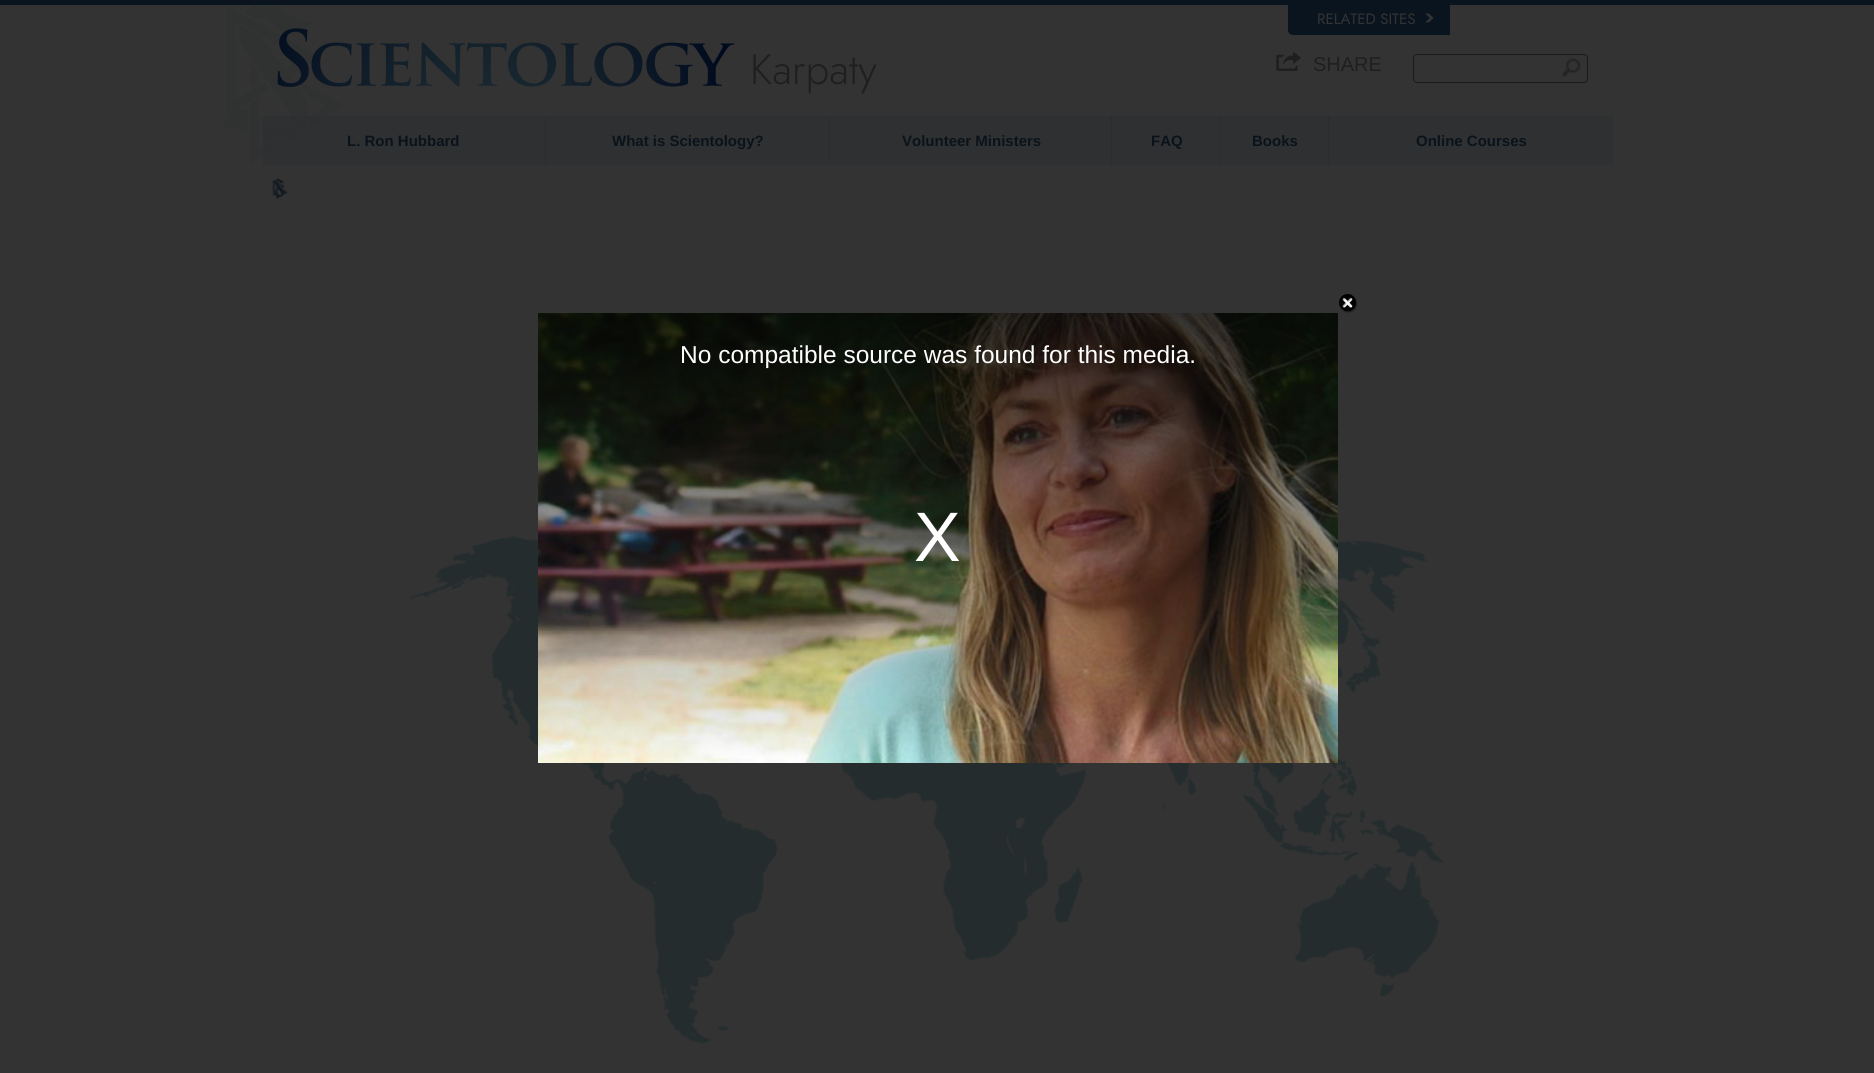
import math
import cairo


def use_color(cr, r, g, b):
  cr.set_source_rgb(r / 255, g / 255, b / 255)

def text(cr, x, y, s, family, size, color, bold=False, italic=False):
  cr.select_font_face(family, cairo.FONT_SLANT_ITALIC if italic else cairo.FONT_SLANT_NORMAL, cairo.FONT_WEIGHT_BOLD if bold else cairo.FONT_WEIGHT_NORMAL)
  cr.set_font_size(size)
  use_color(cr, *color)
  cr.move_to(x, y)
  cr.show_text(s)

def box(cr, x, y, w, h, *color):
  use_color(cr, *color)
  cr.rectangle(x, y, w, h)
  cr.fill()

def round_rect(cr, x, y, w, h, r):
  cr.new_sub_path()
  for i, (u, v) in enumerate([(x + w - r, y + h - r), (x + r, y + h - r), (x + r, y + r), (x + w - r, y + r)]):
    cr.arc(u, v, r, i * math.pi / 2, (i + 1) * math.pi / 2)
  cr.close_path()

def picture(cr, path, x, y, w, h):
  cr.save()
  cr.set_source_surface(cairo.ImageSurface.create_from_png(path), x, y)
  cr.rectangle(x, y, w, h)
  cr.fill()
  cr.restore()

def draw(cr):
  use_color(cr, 51, 51, 51)
  cr.paint()
  box(cr, 0, 0, 1874, 5, 10, 20, 31)
  cr.new_path()
  cr.move_to(1288, 5)
  cr.line_to(1450, 5)
  cr.line_to(1450, 35)
  cr.line_to(1293, 35)
  cr.curve_to(1290, 35, 1288, 33, 1288, 30)
  cr.close_path()
  cr.fill()
  picture(cr, "img_01.png", 1425, 13, 9, 10)
  picture(cr, "img_02.png", 222, 5, 122, 159)
  picture(cr, "img_03.png", 277, 28, 458, 59)
  picture(cr, "img_04.png", 1276, 51, 26, 20)
  picture(cr, "img_05.png", 1562, 58, 19, 19)
  round_rect(cr, 1413.5, 54.5, 174, 28, 3.5)
  use_color(cr, 26, 26, 26)
  cr.set_line_width(1)
  cr.stroke()
  cr.set_source_rgba(0.165, 0.173, 0.18, 0.4)
  cr.rectangle(263, 116, 282, 49)
  cr.fill()
  box(cr, 545, 116, 1, 49, 42, 44, 46)
  box(cr, 547, 116, 282, 49, 47, 48, 49)
  box(cr, 829, 116, 1, 49, 42, 44, 46)
  box(cr, 546, 116, 1, 49, 46, 48, 49)
  box(cr, 831, 116, 282, 49, 47, 48, 49)
  box(cr, 1111, 116, 1, 49, 42, 44, 46)
  box(cr, 830, 116, 1, 49, 46, 48, 49)
  box(cr, 1114, 116, 106, 49, 47, 48, 49)
  box(cr, 1220, 116, 1, 49, 42, 44, 46)
  box(cr, 1113, 116, 1, 49, 46, 48, 49)
  box(cr, 1222, 116, 106, 49, 47, 48, 49)
  box(cr, 1328, 116, 1, 49, 42, 44, 46)
  box(cr, 1221, 116, 1, 49, 46, 48, 49)
  box(cr, 1330, 116, 283, 49, 47, 48, 49)
  box(cr, 1329, 116, 1, 49, 46, 48, 49)
  picture(cr, "img_06.png", 272, 178, 16, 21)
  picture(cr, "img_07.png", 1338, 294, 20, 19)
  picture(cr, "img_09.png", 409, 536, 1035, 509)
  picture(cr, "img_08.png", 538, 313, 800, 450)
  text(cr, 1317, 24, "RELATED SITES", "Jost", 15, (51, 51, 51))
  text(cr, 750, 84, "Karpaty", "Jost Light", 42.5, (31, 31, 31))
  text(cr, 1313, 71, "SHARE", "Liberation Sans", 20, (31, 31, 31))
  text(cr, 347, 146, "L. Ron Hubbard", "Liberation Sans", 15, (10, 19, 27), bold=True)
  text(cr, 612, 146, "What is Scientology?", "Liberation Sans", 15, (10, 19, 27), bold=True)
  text(cr, 902, 146, "Volunteer Ministers", "Liberation Sans", 15, (10, 19, 27), bold=True)
  text(cr, 1151, 146, "FAQ", "Liberation Sans", 15, (10, 19, 27), bold=True)
  text(cr, 1252, 146, "Books", "Liberation Sans", 15, (10, 19, 27), bold=True)
  text(cr, 1416, 146, "Online Courses", "Liberation Sans", 15, (10, 19, 27), bold=True)
  text(cr, 680, 363, "No compatible source was found for this media.", "Liberation Sans", 24.5, (255, 255, 255))
  text(cr, 914, 561, "X", "Liberation Sans", 70, (255, 255, 255))


surface = cairo.ImageSurface(cairo.FORMAT_RGB24, 1874, 1073)
cr = cairo.Context(surface)
options = cairo.FontOptions()
options.set_hint_metrics(cairo.HINT_METRICS_OFF)
options.set_hint_style(cairo.HINT_STYLE_NONE)
cr.set_font_options(options)
cr.set_miter_limit(4)
draw(cr)
surface.write_to_png("out.png")
